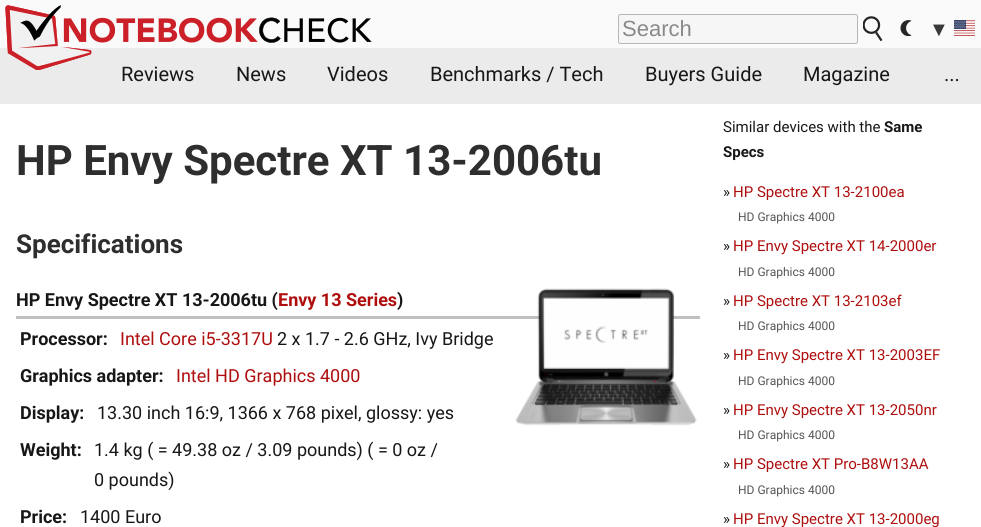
import math
import cairo


def use_color(cr, r, g, b):
  cr.set_source_rgb(r / 255, g / 255, b / 255)

def text(cr, x, y, s, family, size, color, bold=False, italic=False):
  cr.select_font_face(family, cairo.FONT_SLANT_ITALIC if italic else cairo.FONT_SLANT_NORMAL, cairo.FONT_WEIGHT_BOLD if bold else cairo.FONT_WEIGHT_NORMAL)
  cr.set_font_size(size)
  use_color(cr, *color)
  cr.move_to(x, y)
  cr.show_text(s)

def box(cr, x, y, w, h, *color):
  use_color(cr, *color)
  cr.rectangle(x, y, w, h)
  cr.fill()

def round_rect(cr, x, y, w, h, r):
  cr.new_sub_path()
  for i, (u, v) in enumerate([(x + w - r, y + h - r), (x + r, y + h - r), (x + r, y + r), (x + w - r, y + r)]):
    cr.arc(u, v, r, i * math.pi / 2, (i + 1) * math.pi / 2)
  cr.close_path()

def picture(cr, path, x, y, w, h):
  cr.save()
  cr.set_source_surface(cairo.ImageSurface.create_from_png(path), x, y)
  cr.rectangle(x, y, w, h)
  cr.fill()
  cr.restore()

def draw(cr):
  use_color(cr, 250, 250, 250)
  cr.paint()
  picture(cr, "img_01.png", 5, 5, 367, 65)
  cr.set_source_rgba(0, 0, 0, 0.06)
  cr.rectangle(0, 48, 981, 56)
  cr.fill()
  picture(cr, "img_02.png", 5, 5, 86, 65)
  use_color(cr, 246, 246, 246)
  round_rect(cr, 618.5, 14.5, 239, 29, 2)
  cr.fill_preserve()
  use_color(cr, 182, 182, 182)
  cr.set_line_width(1)
  cr.stroke()
  picture(cr, "img_03.png", 863, 16, 20, 25)
  picture(cr, "img_04.png", 900, 20, 12, 16)
  picture(cr, "img_05.png", 954, 20, 21, 16)
  box(cr, 0, 104, 981, 423, 255, 255, 255)
  box(cr, 16, 316, 684, 3, 191, 191, 191)
  picture(cr, "img_06.png", 515, 288, 182, 138)
  text(cr, 622, 36, "Search", "Liberation Sans", 22, (137, 137, 137))
  text(cr, 929, 36, "▼", "Liberation Sans", 20, (57, 57, 57))
  text(cr, 121, 81, "Reviews", "Roboto", 20, (23, 23, 23))
  text(cr, 236, 81, "News", "Roboto", 20, (23, 23, 23))
  text(cr, 327, 81, "Videos", "Roboto", 20, (23, 23, 23))
  text(cr, 430, 81, "Benchmarks / Tech", "Roboto", 20, (23, 23, 23))
  text(cr, 645, 81, "Buyers Guide", "Roboto", 20, (23, 23, 23))
  text(cr, 803, 81, "Magazine", "Roboto", 20, (23, 23, 23))
  text(cr, 944, 81, "...", "Roboto", 20, (23, 23, 23))
  text(cr, 16, 175, "HP Envy Spectre XT 13-2006tu", "Roboto", 42, (46, 46, 46), bold=True)
  text(cr, 16, 253, "Specifications", "Roboto", 26, (46, 46, 46), bold=True)
  text(cr, 16, 306, "HP Envy Spectre XT 13-2006tu (", "Roboto", 18, (23, 23, 23), bold=True)
  text(cr, 278, 306, "Envy 13 Series", "Roboto", 18, (175, 14, 14), bold=True)
  text(cr, 397, 306, ")", "Roboto", 18, (23, 23, 23), bold=True)
  text(cr, 20, 345, "Processor:", "Roboto", 18, (23, 23, 23), bold=True)
  text(cr, 120, 345, "Intel Core i5-3317U", "Roboto", 18, (175, 14, 14))
  text(cr, 277, 345, "2 x 1.7 - 2.6 GHz, Ivy Bridge", "Roboto", 18, (23, 23, 23))
  text(cr, 20, 382, "Graphics adapter:", "Roboto", 18, (23, 23, 23), bold=True)
  text(cr, 176, 382, "Intel HD Graphics 4000", "Roboto", 18, (175, 14, 14))
  text(cr, 20, 419, "Display:", "Roboto", 18, (23, 23, 23), bold=True)
  text(cr, 97, 419, "13.30 inch 16:9, 1366 x 768 pixel, glossy: yes", "Roboto", 18, (23, 23, 23))
  text(cr, 20, 456, "Weight:", "Roboto", 18, (23, 23, 23), bold=True)
  text(cr, 94, 456, "1.4 kg ( = 49.38 oz / 3.09 pounds) ( = 0 oz /", "Roboto", 18, (23, 23, 23))
  text(cr, 94, 486, "0 pounds)", "Roboto", 18, (23, 23, 23))
  text(cr, 20, 523, "Price:", "Roboto", 18, (23, 23, 23), bold=True)
  text(cr, 80, 523, "1400 Euro", "Roboto", 18, (23, 23, 23))
  text(cr, 723, 132, "Similar devices with the", "Roboto", 15, (23, 23, 23))
  text(cr, 884, 132, "Same", "Roboto", 15, (23, 23, 23), bold=True)
  text(cr, 723, 157, "Specs", "Roboto", 15, (23, 23, 23), bold=True)
  text(cr, 723, 197, "»", "Roboto", 15, (23, 23, 23))
  text(cr, 733, 197, "HP Spectre XT 13-2100ea", "Roboto", 15, (175, 14, 14))
  text(cr, 738, 221, "HD Graphics 4000", "Roboto", 12, (85, 85, 85))
  text(cr, 723, 251, "»", "Roboto", 15, (23, 23, 23))
  text(cr, 733, 251, "HP Envy Spectre XT 14-2000er", "Roboto", 15, (175, 14, 14))
  text(cr, 738, 276, "HD Graphics 4000", "Roboto", 12, (85, 85, 85))
  text(cr, 723, 306, "»", "Roboto", 15, (23, 23, 23))
  text(cr, 733, 306, "HP Spectre XT 13-2103ef", "Roboto", 15, (175, 14, 14))
  text(cr, 738, 330, "HD Graphics 4000", "Roboto", 12, (85, 85, 85))
  text(cr, 723, 360, "»", "Roboto", 15, (23, 23, 23))
  text(cr, 733, 360, "HP Envy Spectre XT 13-2003EF", "Roboto", 15, (175, 14, 14))
  text(cr, 738, 385, "HD Graphics 4000", "Roboto", 12, (85, 85, 85))
  text(cr, 723, 415, "»", "Roboto", 15, (23, 23, 23))
  text(cr, 733, 415, "HP Envy Spectre XT 13-2050nr", "Roboto", 15, (175, 14, 14))
  text(cr, 738, 439, "HD Graphics 4000", "Roboto", 12, (85, 85, 85))
  text(cr, 723, 469, "»", "Roboto", 15, (23, 23, 23))
  text(cr, 733, 469, "HP Spectre XT Pro-B8W13AA", "Roboto", 15, (175, 14, 14))
  text(cr, 738, 494, "HD Graphics 4000", "Roboto", 12, (85, 85, 85))
  text(cr, 723, 524, "»", "Roboto", 15, (23, 23, 23))
  text(cr, 733, 524, "HP Envy Spectre XT 13-2000eg", "Roboto", 15, (175, 14, 14))


surface = cairo.ImageSurface(cairo.FORMAT_RGB24, 981, 527)
cr = cairo.Context(surface)
options = cairo.FontOptions()
options.set_hint_metrics(cairo.HINT_METRICS_OFF)
options.set_hint_style(cairo.HINT_STYLE_NONE)
cr.set_font_options(options)
cr.set_miter_limit(4)
draw(cr)
surface.write_to_png("out.png")
